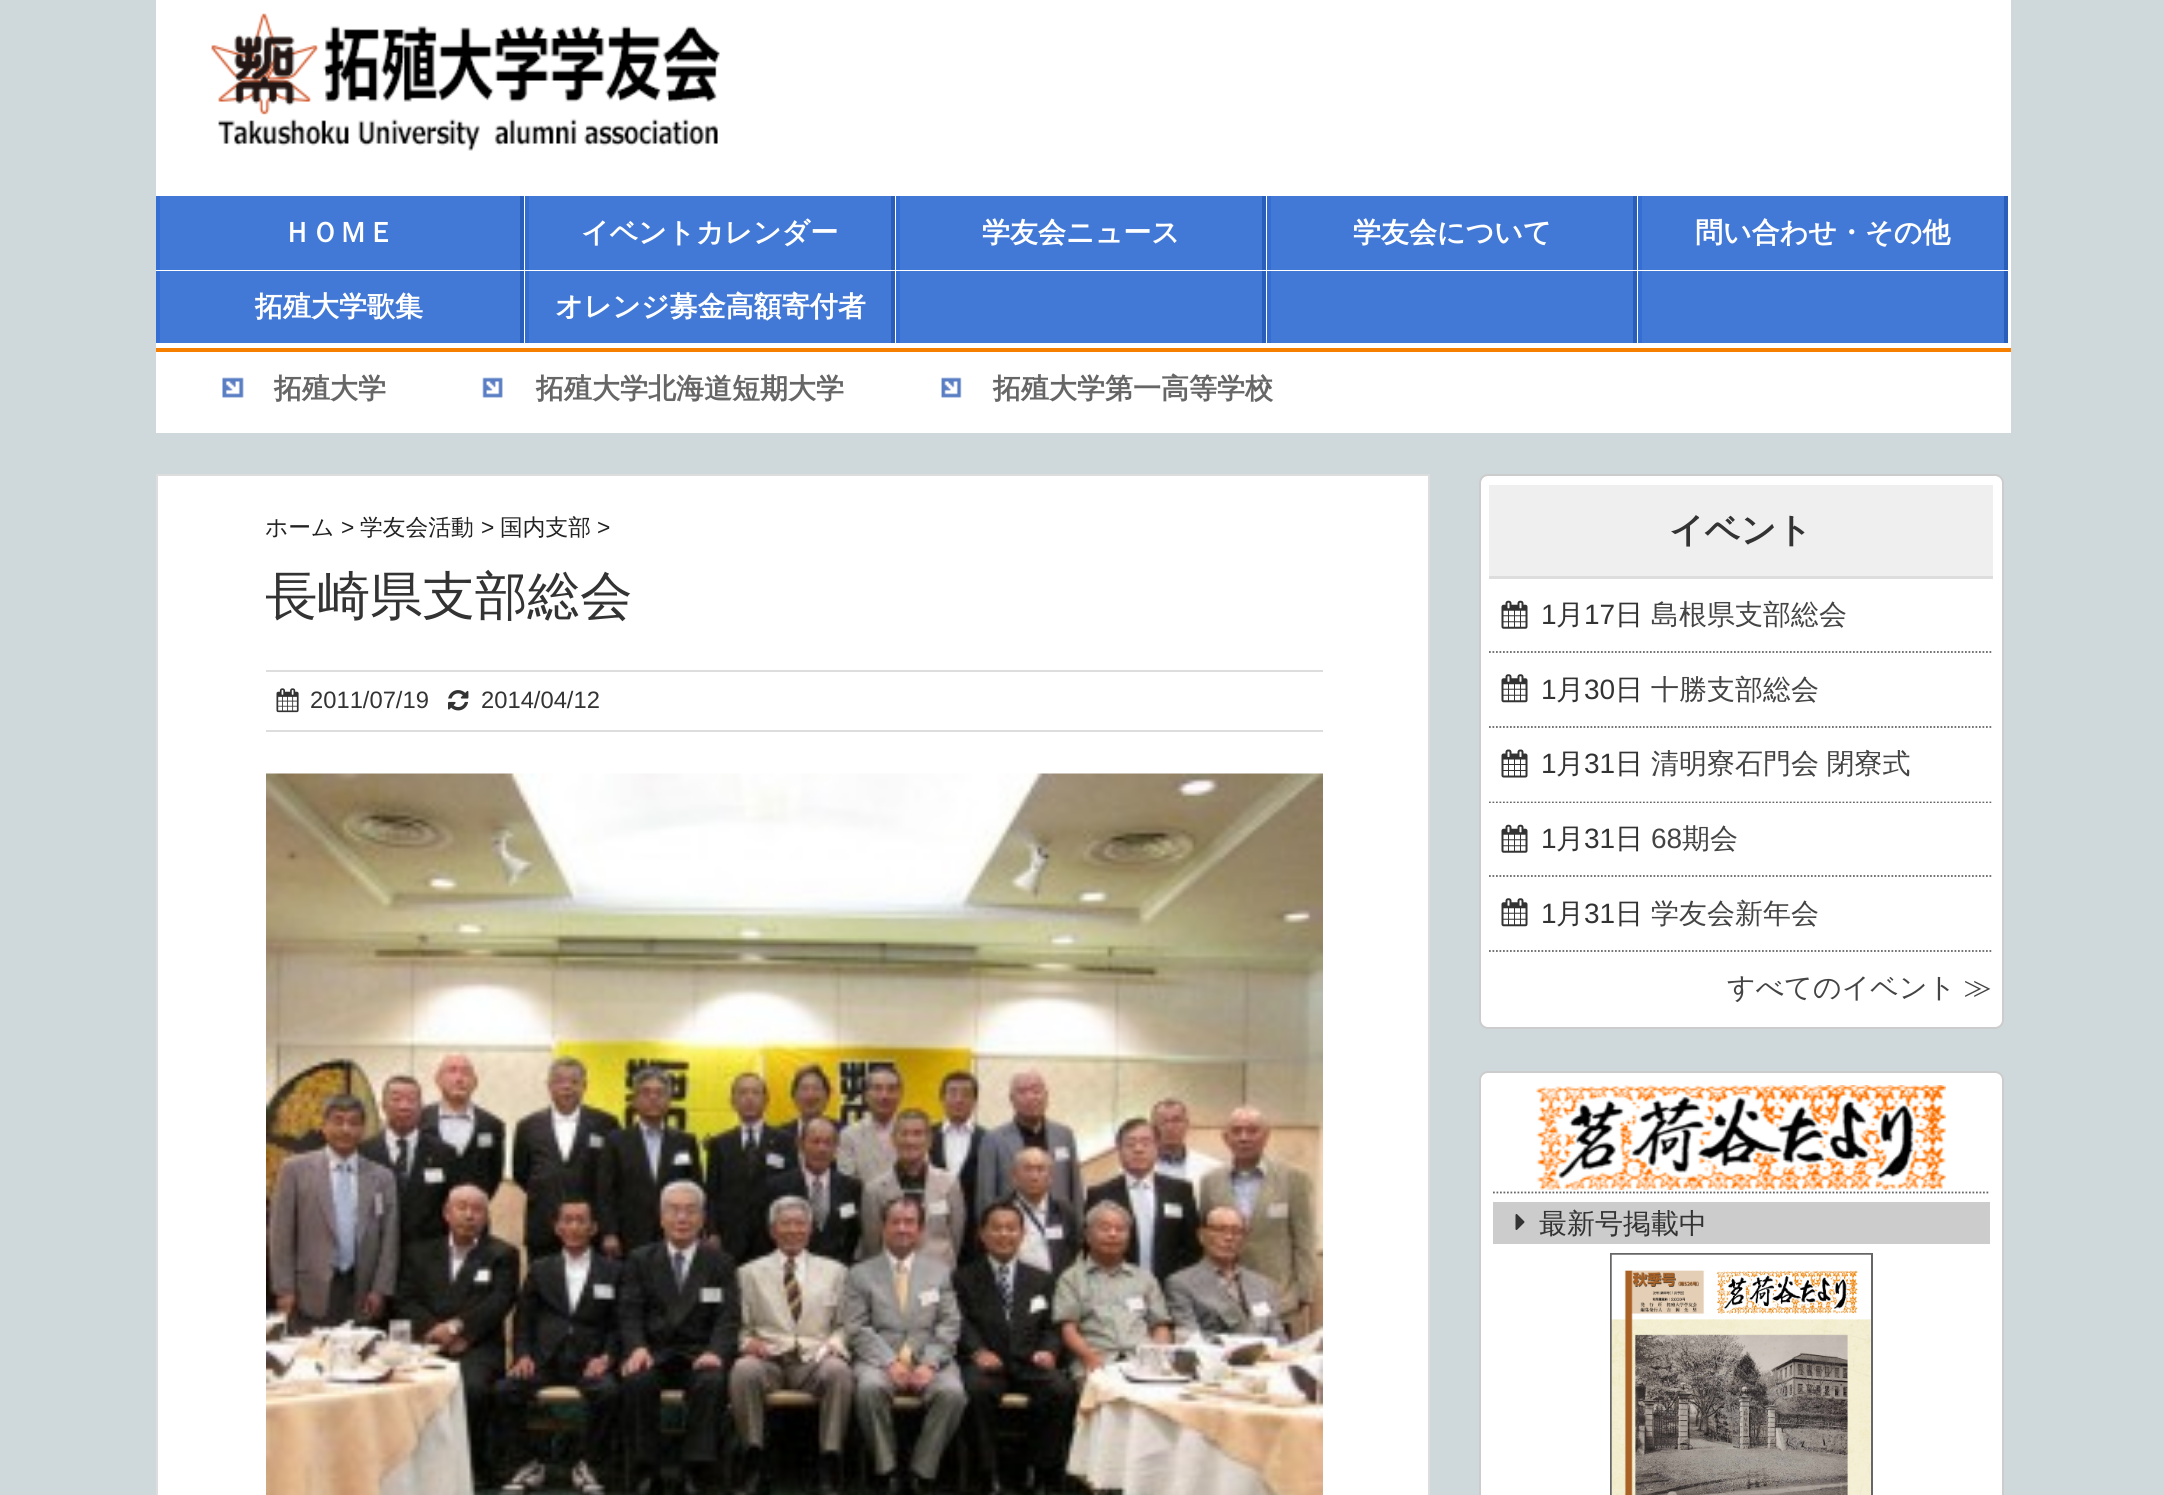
import math
import cairo


def use_color(cr, r, g, b):
  cr.set_source_rgb(r / 255, g / 255, b / 255)

def text(cr, x, y, s, family, size, color, bold=False, italic=False):
  cr.select_font_face(family, cairo.FONT_SLANT_ITALIC if italic else cairo.FONT_SLANT_NORMAL, cairo.FONT_WEIGHT_BOLD if bold else cairo.FONT_WEIGHT_NORMAL)
  cr.set_font_size(size)
  use_color(cr, *color)
  cr.move_to(x, y)
  cr.show_text(s)

def spaced_text(cr, x, y, s, letter, word):
  cr.move_to(x, y)
  for ch in s:
    cr.show_text(ch)
    cr.rel_move_to(letter + word * (ch == ' '), 0)

def box(cr, x, y, w, h, *color):
  use_color(cr, *color)
  cr.rectangle(x, y, w, h)
  cr.fill()

def round_rect(cr, x, y, w, h, r):
  cr.new_sub_path()
  for i, (u, v) in enumerate([(x + w - r, y + h - r), (x + r, y + h - r), (x + r, y + r), (x + w - r, y + r)]):
    cr.arc(u, v, r, i * math.pi / 2, (i + 1) * math.pi / 2)
  cr.close_path()

def picture(cr, path, x, y, w, h):
  cr.save()
  cr.set_source_surface(cairo.ImageSurface.create_from_png(path), x, y)
  cr.rectangle(x, y, w, h)
  cr.fill()
  cr.restore()

def draw(cr):
  use_color(cr, 207, 217, 219)
  cr.paint()
  box(cr, 156, 0, 1855, 433, 255, 255, 255)
  picture(cr, "img_01.png", 211, 13, 509, 138)
  box(cr, 160, 196, 360, 74, 67, 121, 214)
  box(cr, 520, 196, 4, 74, 41, 94, 186)
  box(cr, 156, 196, 4, 74, 52, 110, 211)
  box(cr, 529, 196, 362, 74, 67, 121, 214)
  box(cr, 891, 196, 4, 74, 41, 94, 186)
  box(cr, 525, 196, 4, 74, 52, 110, 211)
  box(cr, 900, 196, 362, 74, 67, 121, 214)
  box(cr, 1262, 196, 4, 74, 41, 94, 186)
  box(cr, 896, 196, 4, 74, 52, 110, 211)
  box(cr, 1271, 196, 362, 74, 67, 121, 214)
  box(cr, 1633, 196, 4, 74, 41, 94, 186)
  box(cr, 1267, 196, 4, 74, 52, 110, 211)
  box(cr, 1642, 196, 362, 74, 67, 121, 214)
  box(cr, 2004, 196, 4, 74, 41, 94, 186)
  box(cr, 1638, 196, 4, 74, 52, 110, 211)
  box(cr, 160, 271, 360, 72, 67, 121, 214)
  box(cr, 520, 271, 4, 72, 41, 94, 186)
  box(cr, 156, 271, 4, 72, 52, 110, 211)
  box(cr, 529, 271, 362, 72, 67, 121, 214)
  box(cr, 891, 271, 4, 72, 41, 94, 186)
  box(cr, 525, 271, 4, 72, 52, 110, 211)
  box(cr, 900, 271, 362, 72, 67, 121, 214)
  box(cr, 1262, 271, 4, 72, 41, 94, 186)
  box(cr, 896, 271, 4, 72, 52, 110, 211)
  box(cr, 1271, 271, 362, 72, 67, 121, 214)
  box(cr, 1633, 271, 4, 72, 41, 94, 186)
  box(cr, 1267, 271, 4, 72, 52, 110, 211)
  box(cr, 1642, 271, 362, 72, 67, 121, 214)
  box(cr, 2004, 271, 4, 72, 41, 94, 186)
  box(cr, 1638, 271, 4, 72, 52, 110, 211)
  box(cr, 156, 348, 1855, 4, 246, 127, 0)
  picture(cr, "img_02.png", 222, 377, 22, 21)
  picture(cr, "img_03.png", 482, 377, 21, 21)
  picture(cr, "img_04.png", 941, 377, 21, 21)
  use_color(cr, 255, 255, 255)
  cr.rectangle(157, 475, 1272, 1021)
  cr.fill_preserve()
  use_color(cr, 221, 221, 221)
  cr.stroke()
  box(cr, 266, 670, 1057, 2, 221, 221, 221)
  box(cr, 266, 730, 1057, 2, 221, 221, 221)
  picture(cr, "img_05.png", 276, 688, 23, 25)
  picture(cr, "img_06.png", 448, 690, 21, 21)
  picture(cr, "img_07.png", 266, 773, 1057, 722)
  use_color(cr, 255, 255, 255)
  round_rect(cr, 1480, 475, 523, 553, 8)
  cr.fill_preserve()
  use_color(cr, 204, 204, 204)
  cr.stroke()
  box(cr, 1489, 485, 504, 91, 239, 239, 239)
  box(cr, 1489, 576, 504, 3, 221, 221, 221)
  cr.new_path()
  cr.move_to(1489, 652)
  cr.line_to(1993, 652)
  use_color(cr, 102, 102, 102)
  cr.set_line_width(1.8)
  cr.set_dash([1.75, 1.75])
  cr.stroke()
  picture(cr, "img_08.png", 1501, 600, 27, 29)
  cr.new_path()
  cr.move_to(1489, 727)
  cr.line_to(1993, 727)
  cr.stroke()
  picture(cr, "img_09.png", 1501, 674, 27, 29)
  cr.new_path()
  cr.move_to(1489, 802.5)
  cr.line_to(1993, 802.5)
  cr.stroke()
  picture(cr, "img_10.png", 1501, 749, 27, 29)
  box(cr, 1489, 803, 503, 1, 255, 255, 255)
  cr.new_path()
  cr.move_to(1489, 876)
  cr.line_to(1993, 876)
  use_color(cr, 102, 102, 102)
  cr.stroke()
  picture(cr, "img_08.png", 1501, 824, 27, 29)
  cr.new_path()
  cr.move_to(1489, 951)
  cr.line_to(1993, 951)
  cr.stroke()
  picture(cr, "img_09.png", 1501, 898, 27, 29)
  use_color(cr, 255, 255, 255)
  round_rect(cr, 1480, 1072, 523, 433, 8)
  cr.fill_preserve()
  use_color(cr, 204, 204, 204)
  cr.set_line_width(2)
  cr.set_dash([])
  cr.stroke()
  picture(cr, "img_11.png", 1536, 1085, 410, 105)
  cr.new_path()
  cr.move_to(1493, 1192.5)
  cr.line_to(1990, 1192.5)
  use_color(cr, 102, 102, 102)
  cr.set_line_width(1.8)
  cr.set_dash([1.75, 1.75])
  cr.stroke()
  box(cr, 1493, 1202, 497, 42, 204, 204, 204)
  picture(cr, "img_12.png", 1515, 1214, 10, 16)
  cr.rectangle(1611, 1254, 261, 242)
  use_color(cr, 102, 102, 102)
  cr.set_line_width(2)
  cr.set_dash([])
  cr.stroke()
  picture(cr, "img_13.png", 1611, 1254, 260, 241)
  text(cr, 283, 242, "ＨＯＭＥ", "WenQuanYi Zen Hei", 28, (255, 255, 255), bold=True)
  text(cr, 581, 242, "イベントカレンダー", "WenQuanYi Zen Hei", 28, (255, 255, 255), bold=True)
  text(cr, 982, 242, "学友会ニュース", "WenQuanYi Zen Hei", 28, (255, 255, 255), bold=True)
  text(cr, 1353, 242, "学友会について", "WenQuanYi Zen Hei", 28, (255, 255, 255), bold=True)
  text(cr, 1695, 242, "問い合わせ・その他", "WenQuanYi Zen Hei", 28, (255, 255, 255), bold=True)
  text(cr, 255, 316, "拓殖大学歌集", "WenQuanYi Zen Hei", 28, (255, 255, 255), bold=True)
  text(cr, 555, 316, "オレンジ募金高額寄付者", "WenQuanYi Zen Hei", 28, (255, 255, 255), bold=True)
  text(cr, 274, 398, "拓殖大学", "WenQuanYi Zen Hei", 28, (102, 102, 102), bold=True)
  text(cr, 536, 398, "拓殖大学北海道短期大学", "WenQuanYi Zen Hei", 28, (102, 102, 102), bold=True)
  text(cr, 993, 398, "拓殖大学第一高等学校", "WenQuanYi Zen Hei", 28, (102, 102, 102), bold=True)
  text(cr, 265, 535, "ホーム", "WenQuanYi Zen Hei Medium", 22.75, (34, 34, 34))
  text(cr, 341, 535, ">", "Liberation Sans", 22.75, (34, 34, 34))
  text(cr, 360, 535, "学友会活動", "WenQuanYi Zen Hei Medium", 22.75, (34, 34, 34))
  text(cr, 481, 535, ">", "Liberation Sans", 22.75, (34, 34, 34))
  text(cr, 500, 535, "国内支部", "WenQuanYi Zen Hei Medium", 22.75, (34, 34, 34))
  text(cr, 597, 535, ">", "Liberation Sans", 22.75, (34, 34, 34))
  text(cr, 265, 614, "長崎県支部総会", "WenQuanYi Zen Hei Medium", 52.5, (51, 51, 51))
  text(cr, 310, 708, "2011/07/19", "Liberation Sans", 23.75, (51, 51, 51))
  text(cr, 481, 708, "2014/04/12", "Liberation Sans", 23.75, (51, 51, 51))
  text(cr, 1669, 542, "イベント", "WenQuanYi Zen Hei", 35, (51, 51, 51), bold=True)
  text(cr, 1541, 624, "1", "Liberation Sans", 28, (51, 51, 51))
  text(cr, 1556, 624, "月", "WenQuanYi Zen Hei Medium", 28, (51, 51, 51))
  text(cr, 1584, 624, "17", "Liberation Sans", 28, (51, 51, 51))
  text(cr, 1615, 624, "日", "WenQuanYi Zen Hei Medium", 28, (51, 51, 51))
  text(cr, 1651, 624, "島根県支部総会", "WenQuanYi Zen Hei Medium", 28, (68, 68, 68))
  text(cr, 1541, 699, "1", "Liberation Sans", 28, (51, 51, 51))
  text(cr, 1556, 699, "月", "WenQuanYi Zen Hei Medium", 28, (51, 51, 51))
  text(cr, 1584, 699, "30", "Liberation Sans", 28, (51, 51, 51))
  text(cr, 1615, 699, "日", "WenQuanYi Zen Hei Medium", 28, (51, 51, 51))
  text(cr, 1651, 699, "十勝支部総会", "WenQuanYi Zen Hei Medium", 28, (68, 68, 68))
  text(cr, 1541, 773, "1", "Liberation Sans", 28, (51, 51, 51))
  text(cr, 1556, 773, "月", "WenQuanYi Zen Hei Medium", 28, (51, 51, 51))
  text(cr, 1584, 773, "31", "Liberation Sans", 28, (51, 51, 51))
  text(cr, 1615, 773, "日", "WenQuanYi Zen Hei Medium", 28, (51, 51, 51))
  use_color(cr, 68, 68, 68)
  spaced_text(cr, 1651, 773, "清明寮石門会 閉寮式", 0, -1)
  text(cr, 1541, 848, "1", "Liberation Sans", 28, (51, 51, 51))
  text(cr, 1556, 848, "月", "WenQuanYi Zen Hei Medium", 28, (51, 51, 51))
  text(cr, 1584, 848, "31", "Liberation Sans", 28, (51, 51, 51))
  text(cr, 1615, 848, "日", "WenQuanYi Zen Hei Medium", 28, (51, 51, 51))
  text(cr, 1651, 848, "68", "Liberation Sans", 28, (68, 68, 68))
  text(cr, 1682, 848, "期会", "WenQuanYi Zen Hei Medium", 28, (68, 68, 68))
  text(cr, 1541, 923, "1", "Liberation Sans", 28, (51, 51, 51))
  text(cr, 1556, 923, "月", "WenQuanYi Zen Hei Medium", 28, (51, 51, 51))
  text(cr, 1584, 923, "31", "Liberation Sans", 28, (51, 51, 51))
  text(cr, 1615, 923, "日", "WenQuanYi Zen Hei Medium", 28, (51, 51, 51))
  text(cr, 1651, 923, "学友会新年会", "WenQuanYi Zen Hei Medium", 28, (68, 68, 68))
  spaced_text(cr, 1727, 997, "すべてのイベント ≫", 0, -1)
  text(cr, 1539, 1233, "最新号掲載中", "WenQuanYi Zen Hei Medium", 28, (51, 51, 51))


surface = cairo.ImageSurface(cairo.FORMAT_RGB24, 2164, 1495)
cr = cairo.Context(surface)
options = cairo.FontOptions()
options.set_hint_metrics(cairo.HINT_METRICS_OFF)
options.set_hint_style(cairo.HINT_STYLE_NONE)
cr.set_font_options(options)
cr.set_miter_limit(4)
draw(cr)
surface.write_to_png("out.png")
